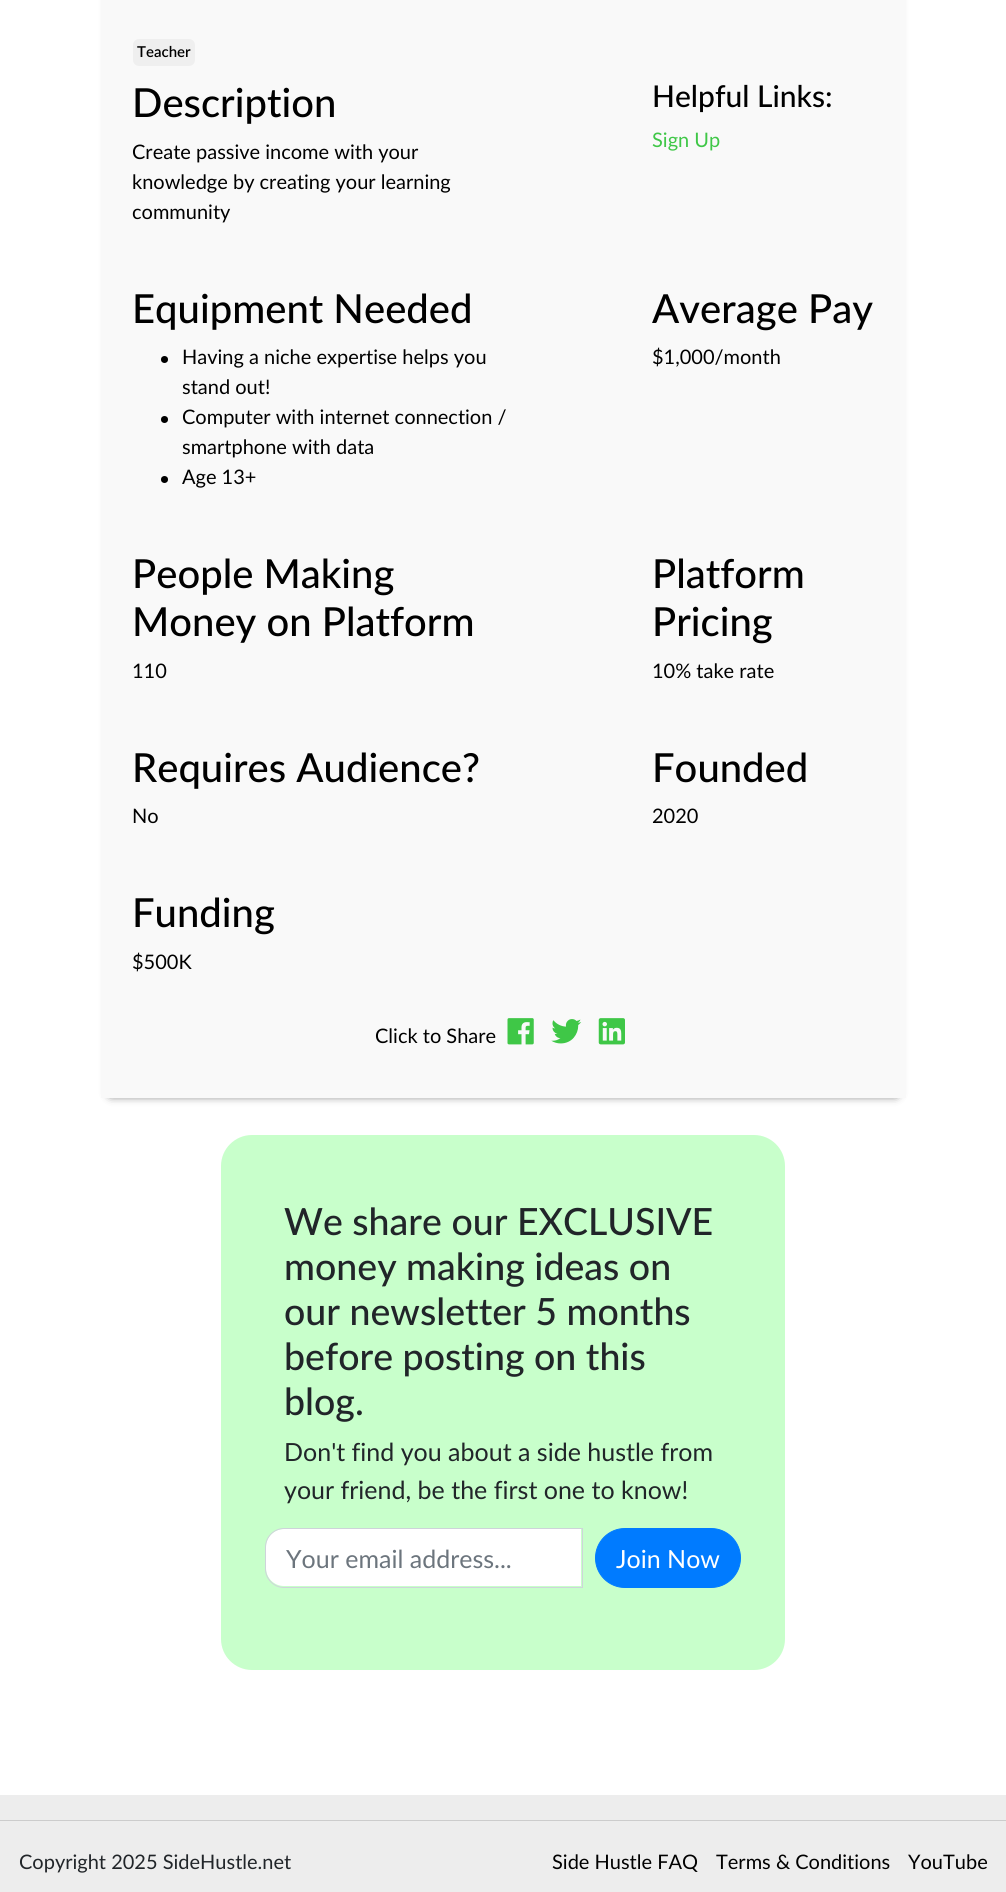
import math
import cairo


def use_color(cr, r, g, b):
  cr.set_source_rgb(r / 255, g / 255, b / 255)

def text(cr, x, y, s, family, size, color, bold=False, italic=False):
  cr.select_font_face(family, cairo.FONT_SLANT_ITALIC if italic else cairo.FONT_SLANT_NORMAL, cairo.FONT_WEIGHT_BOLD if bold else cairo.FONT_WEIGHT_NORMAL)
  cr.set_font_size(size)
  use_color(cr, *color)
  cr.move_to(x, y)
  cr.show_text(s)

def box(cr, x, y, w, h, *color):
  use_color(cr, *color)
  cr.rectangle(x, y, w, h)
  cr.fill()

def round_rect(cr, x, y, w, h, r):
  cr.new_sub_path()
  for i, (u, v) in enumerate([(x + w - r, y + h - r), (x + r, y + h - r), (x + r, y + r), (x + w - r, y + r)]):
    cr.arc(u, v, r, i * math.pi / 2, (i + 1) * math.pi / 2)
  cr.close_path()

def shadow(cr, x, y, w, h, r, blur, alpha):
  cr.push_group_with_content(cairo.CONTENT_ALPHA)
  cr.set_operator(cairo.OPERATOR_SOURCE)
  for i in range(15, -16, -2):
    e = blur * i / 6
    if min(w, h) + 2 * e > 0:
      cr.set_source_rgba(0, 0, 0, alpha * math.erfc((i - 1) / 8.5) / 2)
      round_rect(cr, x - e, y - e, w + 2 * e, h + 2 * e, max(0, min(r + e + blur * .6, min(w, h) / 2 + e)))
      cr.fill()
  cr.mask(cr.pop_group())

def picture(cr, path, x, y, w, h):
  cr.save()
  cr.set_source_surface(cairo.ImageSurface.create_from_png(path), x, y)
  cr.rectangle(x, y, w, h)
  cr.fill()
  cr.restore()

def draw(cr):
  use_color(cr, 255, 255, 255)
  cr.paint()
  use_color(cr, 0, 0, 0)
  shadow(cr, 111, -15, 785, 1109, 0, 5, 1)
  box(cr, 101, 0, 805, 1098, 249, 249, 249)
  use_color(cr, 239, 239, 239)
  round_rect(cr, 133, 39, 62, 27, 6)
  cr.fill()
  use_color(cr, 0, 0, 0)
  cr.arc(164.5, 359.5, 3.5, 0, 2 * math.pi)
  cr.fill()
  cr.arc(164.5, 419.5, 3.5, 0, 2 * math.pi)
  cr.fill()
  cr.arc(164.5, 479.5, 3.5, 0, 2 * math.pi)
  cr.fill()
  picture(cr, "img_01.png", 507, 1018, 27, 27)
  picture(cr, "img_02.png", 551, 1019, 31, 25)
  picture(cr, "img_03.png", 598, 1018, 27, 27)
  use_color(cr, 200, 255, 203)
  round_rect(cr, 221, 1135, 564, 535, 31)
  cr.fill()
  use_color(cr, 255, 255, 255)
  cr.new_path()
  cr.move_to(284, 1529)
  cr.line_to(581, 1529)
  cr.line_to(581, 1586)
  cr.line_to(284, 1586)
  cr.curve_to(274, 1586, 266, 1578, 266, 1568)
  cr.line_to(266, 1547)
  cr.curve_to(266, 1537, 274, 1529, 284, 1529)
  cr.close_path()
  cr.fill()
  cr.new_path()
  cr.move_to(284, 1528.5)
  cr.line_to(582.5, 1528.5)
  cr.line_to(582.5, 1587.5)
  cr.line_to(284, 1587.5)
  cr.curve_to(274, 1587.5, 265.5, 1579, 265.5, 1569)
  cr.line_to(265.5, 1547)
  cr.curve_to(265.5, 1537, 274, 1528.5, 284, 1528.5)
  cr.close_path()
  use_color(cr, 206, 212, 218)
  cr.set_line_width(1)
  cr.stroke()
  use_color(cr, 0, 123, 255)
  round_rect(cr, 595.5, 1528.5, 145, 59, 29.5)
  cr.fill_preserve()
  cr.stroke()
  box(cr, 0, 1795, 1006, 97, 237, 237, 237)
  box(cr, 0, 1820, 1006, 1, 204, 204, 204)
  text(cr, 137, 57, "Teacher", "Lato SemiBold", 15, (0, 0, 0))
  text(cr, 132, 117, "Description", "Lato Medium", 40, (0, 0, 0))
  text(cr, 132, 159, "Create passive income with your", "Lato", 20, (0, 0, 0))
  text(cr, 132, 189, "knowledge by creating your learning", "Lato", 20, (0, 0, 0))
  text(cr, 132, 219, "community", "Lato", 20, (0, 0, 0))
  text(cr, 652, 107, "Helpful Links:", "Lato Medium", 30, (0, 0, 0))
  text(cr, 652, 147, "Sign Up", "Lato", 20, (63, 199, 71))
  text(cr, 132, 323, "Equipment Needed", "Lato Medium", 40, (0, 0, 0))
  text(cr, 182, 364, "Having a niche expertise helps you", "Lato", 20, (0, 0, 0))
  text(cr, 182, 394, "stand out!", "Lato", 20, (0, 0, 0))
  text(cr, 182, 424, "Computer with internet connection /", "Lato", 20, (0, 0, 0))
  text(cr, 182, 454, "smartphone with data", "Lato", 20, (0, 0, 0))
  text(cr, 182, 484, "Age 13+", "Lato", 20, (0, 0, 0))
  text(cr, 652, 323, "Average Pay", "Lato Medium", 40, (0, 0, 0))
  text(cr, 652, 364, "$1,000/month", "Lato", 20, (0, 0, 0))
  text(cr, 132, 588, "People Making", "Lato Medium", 40, (0, 0, 0))
  text(cr, 132, 636, "Money on Platform", "Lato Medium", 40, (0, 0, 0))
  text(cr, 132, 678, "110", "Lato", 20, (0, 0, 0))
  text(cr, 652, 588, "Platform", "Lato Medium", 40, (0, 0, 0))
  text(cr, 652, 636, "Pricing", "Lato Medium", 40, (0, 0, 0))
  text(cr, 652, 678, "10% take rate", "Lato", 20, (0, 0, 0))
  text(cr, 132, 782, "Requires Audience?", "Lato Medium", 40, (0, 0, 0))
  text(cr, 132, 823, "No", "Lato", 20, (0, 0, 0))
  text(cr, 652, 782, "Founded", "Lato Medium", 40, (0, 0, 0))
  text(cr, 652, 823, "2020", "Lato", 20, (0, 0, 0))
  text(cr, 132, 927, "Funding", "Lato Medium", 40, (0, 0, 0))
  text(cr, 132, 969, "$500K", "Lato", 20, (0, 0, 0))
  text(cr, 375, 1043, "Click to Share", "Lato", 20, (0, 0, 0))
  text(cr, 284, 1235, "We share our EXCLUSIVE", "Lato Medium", 37.5, (33, 37, 41))
  text(cr, 284, 1280, "money making ideas on", "Lato Medium", 37.5, (33, 37, 41))
  text(cr, 284, 1325, "our newsletter 5 months", "Lato Medium", 37.5, (33, 37, 41))
  text(cr, 284, 1370, "before posting on this", "Lato Medium", 37.5, (33, 37, 41))
  text(cr, 284, 1415, "blog.", "Lato Medium", 37.5, (33, 37, 41))
  text(cr, 284, 1461, "Don't find you about a side hustle from", "Lato", 25, (33, 37, 41))
  text(cr, 284, 1499, "your friend, be the first one to know!", "Lato", 25, (33, 37, 41))
  text(cr, 286, 1568, "Your email address...", "Lato", 25, (108, 117, 125))
  text(cr, 616, 1568, "Join Now", "Lato", 25, (255, 255, 255))
  text(cr, 19, 1869, "Copyright 2025 SideHustle.net", "Lato", 20, (33, 37, 41))
  text(cr, 552, 1869, "Side Hustle FAQ", "Lato", 20, (0, 0, 0))
  text(cr, 716, 1869, "Terms & Conditions", "Lato", 20, (0, 0, 0))
  text(cr, 908, 1869, "YouTube", "Lato", 20, (0, 0, 0))


surface = cairo.ImageSurface(cairo.FORMAT_RGB24, 1006, 1892)
cr = cairo.Context(surface)
options = cairo.FontOptions()
options.set_hint_metrics(cairo.HINT_METRICS_OFF)
options.set_hint_style(cairo.HINT_STYLE_NONE)
cr.set_font_options(options)
cr.set_miter_limit(4)
draw(cr)
surface.write_to_png("out.png")
